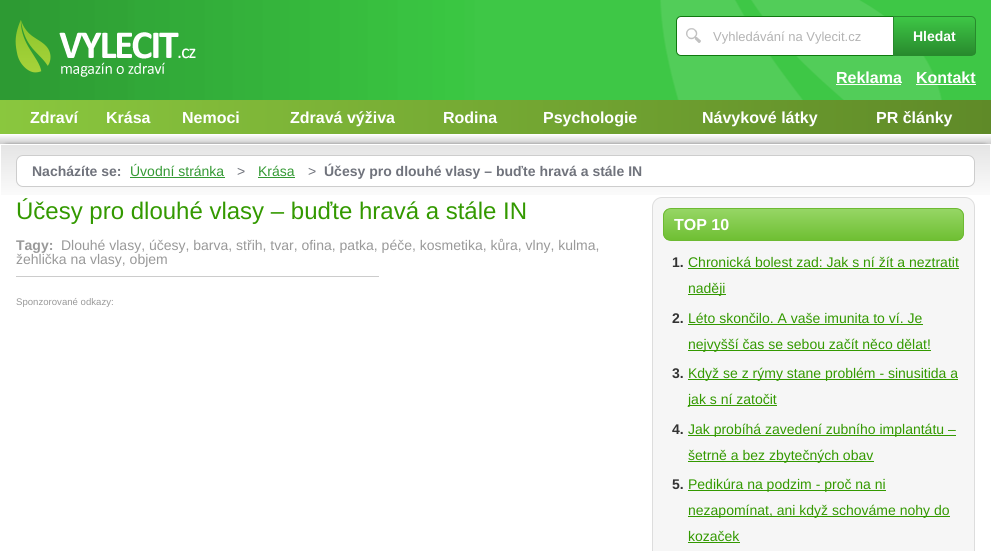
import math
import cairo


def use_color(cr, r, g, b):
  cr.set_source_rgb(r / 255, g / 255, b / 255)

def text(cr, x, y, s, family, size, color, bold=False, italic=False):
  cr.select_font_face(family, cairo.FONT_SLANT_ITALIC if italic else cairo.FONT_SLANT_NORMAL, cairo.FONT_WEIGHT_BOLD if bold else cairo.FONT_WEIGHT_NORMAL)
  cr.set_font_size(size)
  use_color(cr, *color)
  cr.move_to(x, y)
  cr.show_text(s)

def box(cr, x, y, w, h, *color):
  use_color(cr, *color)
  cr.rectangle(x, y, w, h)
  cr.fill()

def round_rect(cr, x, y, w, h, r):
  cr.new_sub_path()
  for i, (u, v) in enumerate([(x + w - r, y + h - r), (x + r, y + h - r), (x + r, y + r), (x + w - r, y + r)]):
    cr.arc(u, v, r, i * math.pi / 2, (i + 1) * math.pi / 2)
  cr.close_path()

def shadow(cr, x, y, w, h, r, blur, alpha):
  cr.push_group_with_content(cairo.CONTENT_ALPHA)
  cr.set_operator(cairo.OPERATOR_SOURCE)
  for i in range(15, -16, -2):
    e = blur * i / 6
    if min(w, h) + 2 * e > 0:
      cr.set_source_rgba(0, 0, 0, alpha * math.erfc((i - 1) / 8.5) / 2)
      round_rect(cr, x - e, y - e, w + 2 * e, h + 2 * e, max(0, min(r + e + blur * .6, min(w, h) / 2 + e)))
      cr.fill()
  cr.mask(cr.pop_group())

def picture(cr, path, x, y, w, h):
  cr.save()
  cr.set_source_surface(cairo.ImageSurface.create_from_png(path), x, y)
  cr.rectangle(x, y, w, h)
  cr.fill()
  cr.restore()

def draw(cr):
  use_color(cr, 255, 255, 255)
  cr.paint()
  box(cr, 942, 0, 49, 100, 62, 199, 70)
  picture(cr, "img_01.png", 0, 0, 942, 100)
  picture(cr, "img_02.png", 15, 20, 181, 57)
  use_color(cr, 255, 255, 255)
  cr.new_path()
  cr.move_to(681, 16.5)
  cr.line_to(893.5, 16.5)
  cr.line_to(893.5, 55.5)
  cr.line_to(681, 55.5)
  cr.curve_to(678.5, 55.5, 676.5, 53.5, 676.5, 51)
  cr.line_to(676.5, 21)
  cr.curve_to(676.5, 18.5, 678.5, 16.5, 681, 16.5)
  cr.close_path()
  cr.fill_preserve()
  use_color(cr, 15, 121, 15)
  cr.set_line_width(1)
  cr.stroke()
  picture(cr, "img_03.png", 686, 28, 15, 15)
  cr.save()
  cr.new_path()
  cr.move_to(893, 16)
  cr.line_to(971, 16)
  cr.curve_to(974, 16, 976, 18, 976, 21)
  cr.line_to(976, 51)
  cr.curve_to(976, 54, 974, 56, 971, 56)
  cr.line_to(893, 56)
  cr.close_path()
  cr.clip()
  gradient = cairo.LinearGradient(935, 17, 935, 55)
  gradient.add_color_stop_rgba(0, 0.243, 0.78, 0.275, 1)
  gradient.add_color_stop_rgba(1, 0.157, 0.541, 0.176, 1)
  cr.set_source(gradient)
  cr.rectangle(894, 17, 82, 38)
  cr.fill()
  cr.restore()
  cr.new_path()
  cr.move_to(893.5, 16.5)
  cr.line_to(971, 16.5)
  cr.curve_to(973.5, 16.5, 975.5, 18.5, 975.5, 21)
  cr.line_to(975.5, 51)
  cr.curve_to(975.5, 53.5, 973.5, 55.5, 971, 55.5)
  cr.line_to(893.5, 55.5)
  cr.close_path()
  use_color(cr, 40, 138, 45)
  cr.stroke()
  gradient = cairo.LinearGradient(496, 134, 496, 144)
  gradient.add_color_stop_rgba(0, 1, 1, 1, 1)
  gradient.add_color_stop_rgba(1, 0.804, 0.804, 0.804, 1)
  cr.set_source(gradient)
  cr.rectangle(0, 135, 991, 9)
  cr.fill()
  use_color(cr, 0, 0, 0)
  shadow(cr, 0, 144, 991, 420, 8, 1.5, 0.3)
  box(cr, 1, 195, 989, 356, 255, 255, 255)
  picture(cr, "img_04.png", 1, 145, 989, 50)
  cr.rectangle(0.5, 144.5, 990, 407)
  cr.stroke()
  round_rect(cr, 16.5, 155.5, 958, 31, 6.5)
  cr.fill_preserve()
  use_color(cr, 205, 205, 205)
  cr.stroke()
  box(cr, 130, 177, 95, 1, 51, 153, 51)
  box(cr, 258, 177, 37, 1, 51, 153, 51)
  box(cr, 16, 276, 363, 1, 204, 204, 204)
  use_color(cr, 246, 246, 246)
  round_rect(cr, 652.5, 197.5, 322, 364, 9.5)
  cr.fill_preserve()
  use_color(cr, 221, 221, 221)
  cr.stroke()
  cr.save()
  round_rect(cr, 663, 208, 301, 33, 8)
  cr.clip()
  gradient = cairo.LinearGradient(814, 209, 814, 240)
  gradient.add_color_stop_rgba(0, 0.588, 0.839, 0.396, 1)
  gradient.add_color_stop_rgba(1, 0.435, 0.749, 0.2, 1)
  cr.set_source(gradient)
  cr.rectangle(663, 209, 301, 31)
  cr.fill()
  cr.restore()
  round_rect(cr, 663.5, 208.5, 300, 32, 7.5)
  use_color(cr, 109, 186, 50)
  cr.stroke()
  box(cr, 688, 268, 271, 1, 51, 153, 0)
  box(cr, 688, 294, 38, 1, 51, 153, 0)
  box(cr, 688, 324, 235, 1, 51, 153, 0)
  box(cr, 688, 350, 243, 1, 51, 153, 0)
  box(cr, 688, 379, 270, 1, 51, 153, 0)
  box(cr, 688, 405, 89, 1, 51, 153, 0)
  box(cr, 688, 435, 268, 1, 51, 153, 0)
  box(cr, 688, 461, 186, 1, 51, 153, 0)
  box(cr, 688, 490, 198, 1, 51, 153, 0)
  box(cr, 688, 516, 262, 1, 51, 153, 0)
  box(cr, 688, 542, 52, 1, 51, 153, 0)
  gradient = cairo.LinearGradient(991, 117, 0, 117)
  gradient.add_color_stop_rgba(0, 0.373, 0.541, 0.157, 1)
  gradient.add_color_stop_rgba(1, 0.541, 0.78, 0.243, 1)
  cr.set_source(gradient)
  cr.rectangle(0, 100, 991, 34)
  cr.fill()
  box(cr, 836, 84, 65, 1, 255, 255, 255)
  box(cr, 916, 84, 60, 1, 255, 255, 255)
  text(cr, 713, 41, "Vyhledávání na Vylecit.cz", "Liberation Sans", 13, (179, 179, 179))
  text(cr, 913, 41, "Hledat", "Liberation Sans", 14, (255, 255, 255), bold=True)
  text(cr, 32, 176, "Nacházíte se:", "Liberation Sans", 14, (112, 115, 124), bold=True)
  text(cr, 130, 176, "Úvodní stránka", "Liberation Sans", 14, (51, 153, 51))
  text(cr, 237, 176, ">", "Liberation Sans", 14, (112, 115, 124))
  text(cr, 258, 176, "Krása", "Liberation Sans", 14, (51, 153, 51))
  text(cr, 308, 176, ">", "Liberation Sans", 14, (112, 115, 124))
  text(cr, 324, 176, "Účesy pro dlouhé vlasy – buďte hravá a stále IN", "Liberation Sans", 14, (112, 115, 124), bold=True)
  text(cr, 16, 219, "Účesy pro dlouhé vlasy – buďte hravá a stále IN", "Liberation Sans", 24, (51, 153, 0))
  text(cr, 16, 250, "Tagy:", "Liberation Sans", 14, (153, 153, 153), bold=True)
  text(cr, 61, 250, "Dlouhé vlasy, účesy, barva, střih, tvar, ofina, patka, péče, kosmetika, kůra, vlny, kulma,", "Liberation Sans", 14, (153, 153, 153))
  text(cr, 16, 264, "žehlička na vlasy, objem", "Liberation Sans", 14, (153, 153, 153))
  text(cr, 16, 305, "Sponzorované odkazy:", "Liberation Sans", 9.6, (153, 153, 153))
  text(cr, 674, 230, "TOP 10", "Liberation Sans", 16, (255, 255, 255), bold=True)
  text(cr, 672, 267, "1.", "Liberation Sans", 14, (51, 51, 51), bold=True)
  text(cr, 688, 267, "Chronická bolest zad: Jak s ní žít a neztratit", "Liberation Sans", 14, (51, 153, 0))
  text(cr, 688, 293, "naději", "Liberation Sans", 14, (51, 153, 0))
  text(cr, 672, 323, "2.", "Liberation Sans", 14, (51, 51, 51), bold=True)
  text(cr, 688, 323, "Léto skončilo. A vaše imunita to ví. Je", "Liberation Sans", 14, (51, 153, 0))
  text(cr, 688, 349, "nejvyšší čas se sebou začít něco dělat!", "Liberation Sans", 14, (51, 153, 0))
  text(cr, 672, 378, "3.", "Liberation Sans", 14, (51, 51, 51), bold=True)
  text(cr, 688, 378, "Když se z rýmy stane problém - sinusitida a", "Liberation Sans", 14, (51, 153, 0))
  text(cr, 688, 404, "jak s ní zatočit", "Liberation Sans", 14, (51, 153, 0))
  text(cr, 672, 434, "4.", "Liberation Sans", 14, (51, 51, 51), bold=True)
  text(cr, 688, 434, "Jak probíhá zavedení zubního implantátu –", "Liberation Sans", 14, (51, 153, 0))
  text(cr, 688, 460, "šetrně a bez zbytečných obav", "Liberation Sans", 14, (51, 153, 0))
  text(cr, 672, 489, "5.", "Liberation Sans", 14, (51, 51, 51), bold=True)
  text(cr, 688, 489, "Pedikúra na podzim - proč na ni", "Liberation Sans", 14, (51, 153, 0))
  text(cr, 688, 515, "nezapomínat, ani když schováme nohy do", "Liberation Sans", 14, (51, 153, 0))
  text(cr, 688, 541, "kozaček", "Liberation Sans", 14, (51, 153, 0))
  text(cr, 836, 83, "Reklama", "Liberation Sans", 16, (255, 255, 255), bold=True)
  text(cr, 916, 83, "Kontakt", "Liberation Sans", 16, (255, 255, 255), bold=True)
  text(cr, 30, 123, "Zdraví", "Liberation Sans", 16, (255, 255, 255), bold=True)
  text(cr, 106, 123, "Krása", "Liberation Sans", 16, (255, 255, 255), bold=True)
  text(cr, 182, 123, "Nemoci", "Liberation Sans", 16, (255, 255, 255), bold=True)
  text(cr, 290, 123, "Zdravá výživa", "Liberation Sans", 16, (255, 255, 255), bold=True)
  text(cr, 443, 123, "Rodina", "Liberation Sans", 16, (255, 255, 255), bold=True)
  text(cr, 543, 123, "Psychologie", "Liberation Sans", 16, (255, 255, 255), bold=True)
  text(cr, 702, 123, "Návykové látky", "Liberation Sans", 16, (255, 255, 255), bold=True)
  text(cr, 876, 123, "PR články", "Liberation Sans", 16, (255, 255, 255), bold=True)


surface = cairo.ImageSurface(cairo.FORMAT_RGB24, 991, 551)
cr = cairo.Context(surface)
options = cairo.FontOptions()
options.set_hint_metrics(cairo.HINT_METRICS_OFF)
options.set_hint_style(cairo.HINT_STYLE_NONE)
cr.set_font_options(options)
cr.set_miter_limit(4)
draw(cr)
surface.write_to_png("out.png")
